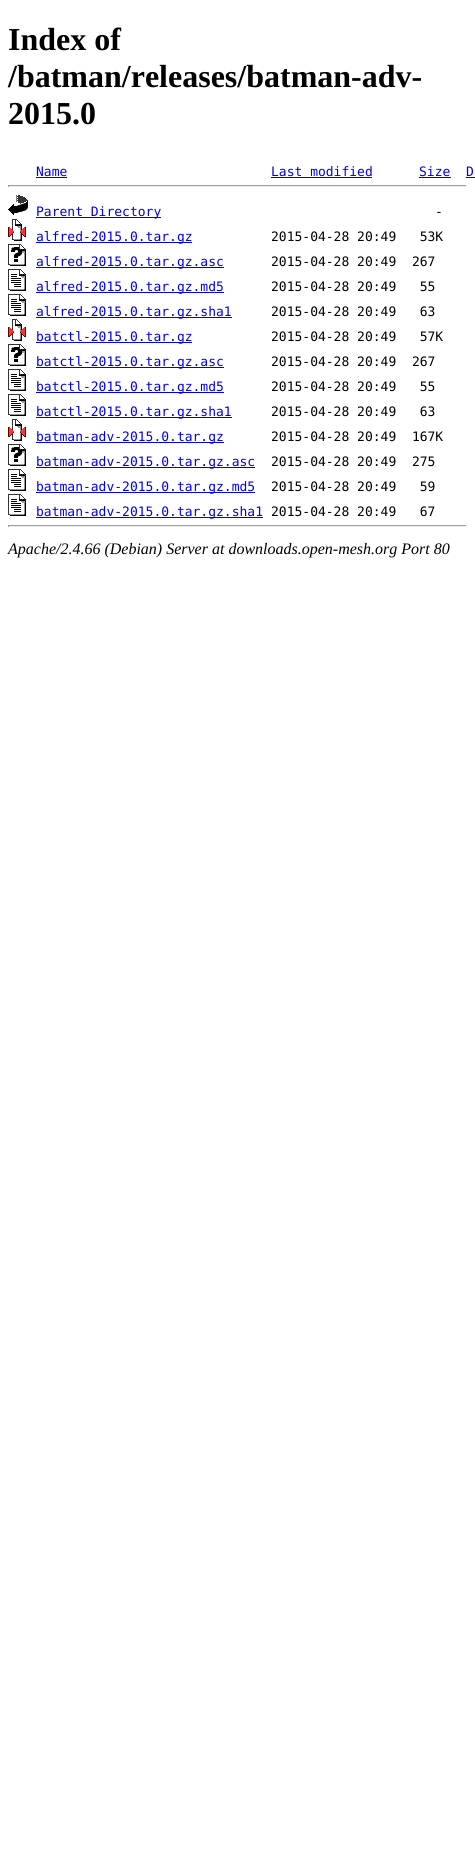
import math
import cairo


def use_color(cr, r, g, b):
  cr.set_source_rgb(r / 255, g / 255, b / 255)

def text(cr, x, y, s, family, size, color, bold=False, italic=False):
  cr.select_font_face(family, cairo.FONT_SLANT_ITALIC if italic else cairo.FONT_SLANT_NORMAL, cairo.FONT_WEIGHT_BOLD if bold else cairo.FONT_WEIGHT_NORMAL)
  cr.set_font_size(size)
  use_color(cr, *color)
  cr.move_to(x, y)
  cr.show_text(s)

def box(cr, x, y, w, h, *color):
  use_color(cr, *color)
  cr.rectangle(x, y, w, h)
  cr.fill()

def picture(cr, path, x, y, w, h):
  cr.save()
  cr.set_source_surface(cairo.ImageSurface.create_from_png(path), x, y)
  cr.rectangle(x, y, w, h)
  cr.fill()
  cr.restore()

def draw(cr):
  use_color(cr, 255, 255, 255)
  cr.paint()
  box(cr, 36, 177, 31, 1, 0, 0, 238)
  box(cr, 271, 177, 101, 1, 0, 0, 238)
  box(cr, 419, 177, 32, 1, 0, 0, 238)
  box(cr, 466, 177, 9, 1, 0, 0, 238)
  box(cr, 8, 185, 459, 1, 159, 159, 159)
  box(cr, 466, 185, 1, 2, 238, 238, 238)
  box(cr, 8, 186, 459, 1, 238, 238, 238)
  box(cr, 8, 185, 1, 2, 159, 159, 159)
  picture(cr, "img_01.png", 8, 195, 20, 20)
  box(cr, 36, 217, 125, 1, 0, 0, 238)
  picture(cr, "img_02.png", 8, 219, 18, 22)
  box(cr, 36, 242, 156, 1, 0, 0, 238)
  picture(cr, "img_03.png", 8, 244, 18, 22)
  box(cr, 36, 267, 188, 1, 0, 0, 238)
  picture(cr, "img_04.png", 8, 269, 18, 22)
  box(cr, 36, 292, 188, 1, 0, 0, 238)
  picture(cr, "img_04.png", 8, 294, 18, 22)
  box(cr, 36, 317, 196, 1, 0, 0, 238)
  picture(cr, "img_02.png", 8, 319, 18, 22)
  box(cr, 36, 342, 156, 1, 0, 0, 238)
  picture(cr, "img_03.png", 8, 344, 18, 22)
  box(cr, 36, 367, 188, 1, 0, 0, 238)
  picture(cr, "img_04.png", 8, 369, 18, 22)
  box(cr, 36, 392, 188, 1, 0, 0, 238)
  picture(cr, "img_04.png", 8, 394, 18, 22)
  box(cr, 36, 417, 196, 1, 0, 0, 238)
  picture(cr, "img_02.png", 8, 419, 18, 22)
  box(cr, 36, 442, 188, 1, 0, 0, 238)
  picture(cr, "img_03.png", 8, 444, 18, 22)
  box(cr, 36, 467, 219, 1, 0, 0, 238)
  picture(cr, "img_04.png", 8, 469, 18, 22)
  box(cr, 36, 492, 219, 1, 0, 0, 238)
  picture(cr, "img_04.png", 8, 494, 18, 22)
  box(cr, 36, 517, 227, 1, 0, 0, 238)
  box(cr, 8, 525, 459, 1, 159, 159, 159)
  box(cr, 466, 525, 1, 2, 238, 238, 238)
  box(cr, 8, 526, 459, 1, 238, 238, 238)
  box(cr, 8, 525, 1, 2, 159, 159, 159)
  text(cr, 8, 50, "Index of", "Liberation Serif", 32, (0, 0, 0), bold=True)
  text(cr, 8, 87, "/batman/releases/batman-adv-", "Liberation Serif", 32, (0, 0, 0), bold=True)
  text(cr, 8, 124, "2015.0", "Liberation Serif", 32, (0, 0, 0), bold=True)
  text(cr, 36, 176, "Name", "DejaVu Sans Mono", 13, (0, 0, 238))
  text(cr, 271, 176, "Last modified", "DejaVu Sans Mono", 13, (0, 0, 238))
  text(cr, 419, 176, "Size", "DejaVu Sans Mono", 13, (0, 0, 238))
  text(cr, 466, 176, "D", "DejaVu Sans Mono", 13, (0, 0, 238))
  text(cr, 36, 216, "Parent Directory", "DejaVu Sans Mono", 13, (0, 0, 238))
  text(cr, 435, 216, "-", "DejaVu Sans Mono", 13, (0, 0, 0))
  text(cr, 36, 241, "alfred-2015.0.tar.gz", "DejaVu Sans Mono", 13, (0, 0, 238))
  text(cr, 271, 241, "2015-04-28 20:49   53K", "DejaVu Sans Mono", 13, (0, 0, 0))
  text(cr, 36, 266, "alfred-2015.0.tar.gz.asc", "DejaVu Sans Mono", 13, (0, 0, 238))
  text(cr, 271, 266, "2015-04-28 20:49  267", "DejaVu Sans Mono", 13, (0, 0, 0))
  text(cr, 36, 291, "alfred-2015.0.tar.gz.md5", "DejaVu Sans Mono", 13, (0, 0, 238))
  text(cr, 271, 291, "2015-04-28 20:49   55", "DejaVu Sans Mono", 13, (0, 0, 0))
  text(cr, 36, 316, "alfred-2015.0.tar.gz.sha1", "DejaVu Sans Mono", 13, (0, 0, 238))
  text(cr, 271, 316, "2015-04-28 20:49   63", "DejaVu Sans Mono", 13, (0, 0, 0))
  text(cr, 36, 341, "batctl-2015.0.tar.gz", "DejaVu Sans Mono", 13, (0, 0, 238))
  text(cr, 271, 341, "2015-04-28 20:49   57K", "DejaVu Sans Mono", 13, (0, 0, 0))
  text(cr, 36, 366, "batctl-2015.0.tar.gz.asc", "DejaVu Sans Mono", 13, (0, 0, 238))
  text(cr, 271, 366, "2015-04-28 20:49  267", "DejaVu Sans Mono", 13, (0, 0, 0))
  text(cr, 36, 391, "batctl-2015.0.tar.gz.md5", "DejaVu Sans Mono", 13, (0, 0, 238))
  text(cr, 271, 391, "2015-04-28 20:49   55", "DejaVu Sans Mono", 13, (0, 0, 0))
  text(cr, 36, 416, "batctl-2015.0.tar.gz.sha1", "DejaVu Sans Mono", 13, (0, 0, 238))
  text(cr, 271, 416, "2015-04-28 20:49   63", "DejaVu Sans Mono", 13, (0, 0, 0))
  text(cr, 36, 441, "batman-adv-2015.0.tar.gz", "DejaVu Sans Mono", 13, (0, 0, 238))
  text(cr, 271, 441, "2015-04-28 20:49  167K", "DejaVu Sans Mono", 13, (0, 0, 0))
  text(cr, 36, 466, "batman-adv-2015.0.tar.gz.asc", "DejaVu Sans Mono", 13, (0, 0, 238))
  text(cr, 271, 466, "2015-04-28 20:49  275", "DejaVu Sans Mono", 13, (0, 0, 0))
  text(cr, 36, 491, "batman-adv-2015.0.tar.gz.md5", "DejaVu Sans Mono", 13, (0, 0, 238))
  text(cr, 271, 491, "2015-04-28 20:49   59", "DejaVu Sans Mono", 13, (0, 0, 0))
  text(cr, 36, 516, "batman-adv-2015.0.tar.gz.sha1", "DejaVu Sans Mono", 13, (0, 0, 238))
  text(cr, 271, 516, "2015-04-28 20:49   67", "DejaVu Sans Mono", 13, (0, 0, 0))
  text(cr, 8, 554, "Apache/2.4.66 (Debian) Server at downloads.open-mesh.org Port 80", "Liberation Serif", 16, (0, 0, 0), italic=True)


surface = cairo.ImageSurface(cairo.FORMAT_RGB24, 475, 1850)
cr = cairo.Context(surface)
options = cairo.FontOptions()
options.set_hint_metrics(cairo.HINT_METRICS_OFF)
options.set_hint_style(cairo.HINT_STYLE_NONE)
cr.set_font_options(options)
cr.set_miter_limit(4)
draw(cr)
surface.write_to_png("out.png")
